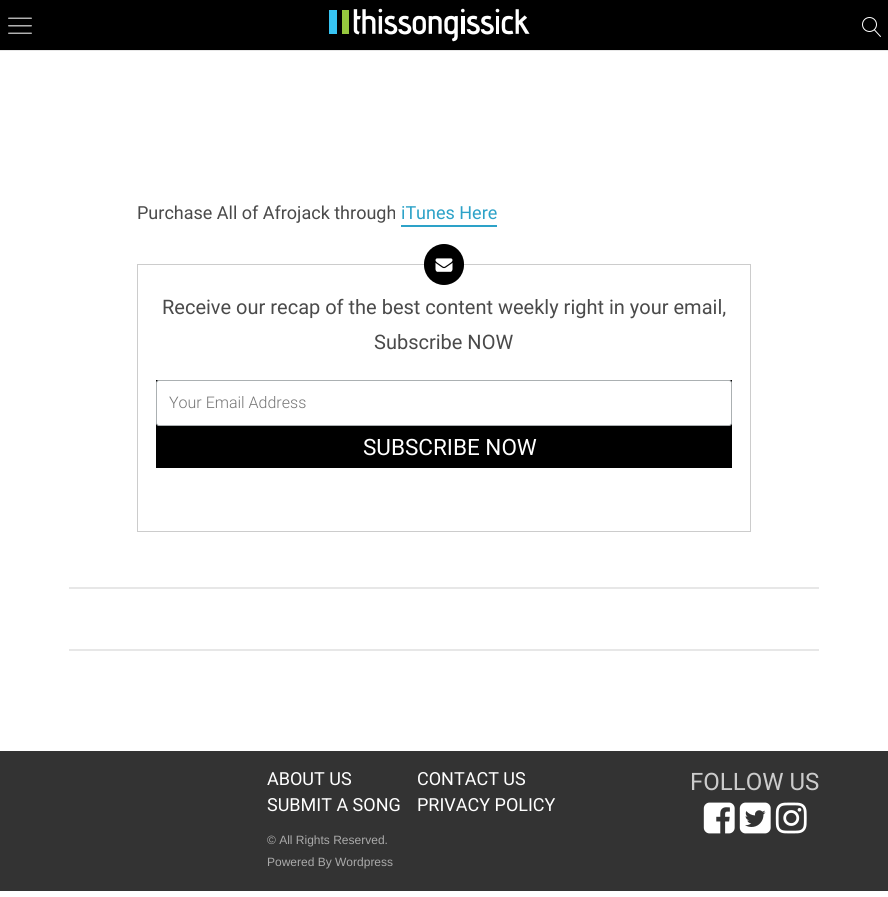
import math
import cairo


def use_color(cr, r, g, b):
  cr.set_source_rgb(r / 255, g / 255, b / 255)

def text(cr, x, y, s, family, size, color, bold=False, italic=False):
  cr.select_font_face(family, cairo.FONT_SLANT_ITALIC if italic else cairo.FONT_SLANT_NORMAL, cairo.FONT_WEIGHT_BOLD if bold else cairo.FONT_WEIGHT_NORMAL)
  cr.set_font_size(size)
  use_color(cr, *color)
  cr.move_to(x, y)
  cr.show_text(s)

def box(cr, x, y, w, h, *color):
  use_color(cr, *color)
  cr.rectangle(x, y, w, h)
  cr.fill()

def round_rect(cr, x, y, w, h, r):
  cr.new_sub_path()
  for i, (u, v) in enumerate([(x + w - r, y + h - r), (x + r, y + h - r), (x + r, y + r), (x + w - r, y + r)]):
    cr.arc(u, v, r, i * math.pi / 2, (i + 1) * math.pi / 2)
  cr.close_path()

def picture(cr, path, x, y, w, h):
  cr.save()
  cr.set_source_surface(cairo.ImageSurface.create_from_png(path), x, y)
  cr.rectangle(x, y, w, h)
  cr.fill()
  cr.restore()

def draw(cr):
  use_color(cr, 255, 255, 255)
  cr.paint()
  box(cr, 0, 0, 888, 50, 0, 0, 0)
  box(cr, 0, 50, 888, 1, 231, 231, 231)
  picture(cr, "img_01.png", 8, 17, 24, 17)
  picture(cr, "img_02.png", 329, 8, 201, 34)
  picture(cr, "img_03.png", 862, 17, 19, 20)
  box(cr, 69, 587, 750, 2, 231, 231, 231)
  box(cr, 401, 225, 96, 2, 45, 162, 200)
  cr.rectangle(137.5, 264.5, 613, 267)
  use_color(cr, 204, 204, 204)
  cr.set_line_width(1)
  cr.stroke()
  use_color(cr, 0, 0, 0)
  round_rect(cr, 429, 249, 30, 31, 15)
  cr.fill_preserve()
  cr.set_line_width(10)
  cr.stroke()
  picture(cr, "img_04.png", 435, 258, 18, 14)
  box(cr, 156, 380, 576, 88, 0, 0, 0)
  use_color(cr, 255, 255, 255)
  round_rect(cr, 156.5, 380.5, 575, 45, 2.5)
  cr.fill_preserve()
  use_color(cr, 171, 176, 178)
  cr.set_line_width(1)
  cr.stroke()
  box(cr, 69, 649, 750, 2, 231, 231, 231)
  box(cr, 0, 751, 888, 140, 51, 51, 51)
  picture(cr, "img_05.png", 703, 802, 32, 32)
  picture(cr, "img_06.png", 739, 802, 32, 32)
  picture(cr, "img_07.png", 775, 802, 32, 32)
  text(cr, 137, 219, "Purchase All of Afrojack through", "Roboto", 18, (74, 74, 74))
  text(cr, 401, 219, "iTunes Here", "Roboto", 18, (45, 162, 200))
  text(cr, 162, 314, "Receive our recap of the best content weekly right in your email,", "Roboto", 20, (74, 74, 74))
  text(cr, 374, 349, "Subscribe NOW", "Roboto", 20, (74, 74, 74))
  text(cr, 169, 408, "Your Email Address", "Roboto Light", 16, (117, 117, 117))
  text(cr, 363, 455, "SUBSCRIBE NOW", "Roboto", 22.5, (255, 255, 255))
  text(cr, 267, 785, "ABOUT US", "Roboto", 18, (255, 255, 255))
  text(cr, 417, 785, "CONTACT US", "Roboto", 18, (255, 255, 255))
  text(cr, 267, 811, "SUBMIT A SONG", "Roboto", 18, (255, 255, 255))
  text(cr, 417, 811, "PRIVACY POLICY", "Roboto", 18, (255, 255, 255))
  text(cr, 267, 844, "© All Rights Reserved.", "Liberation Sans", 12, (170, 170, 170))
  text(cr, 267, 866, "Powered By Wordpress", "Liberation Sans", 12, (170, 170, 170))
  text(cr, 690, 790, "FOLLOW US", "Roboto", 24, (204, 204, 204))


surface = cairo.ImageSurface(cairo.FORMAT_RGB24, 888, 897)
cr = cairo.Context(surface)
options = cairo.FontOptions()
options.set_hint_metrics(cairo.HINT_METRICS_OFF)
options.set_hint_style(cairo.HINT_STYLE_NONE)
cr.set_font_options(options)
cr.set_miter_limit(4)
draw(cr)
surface.write_to_png("out.png")
